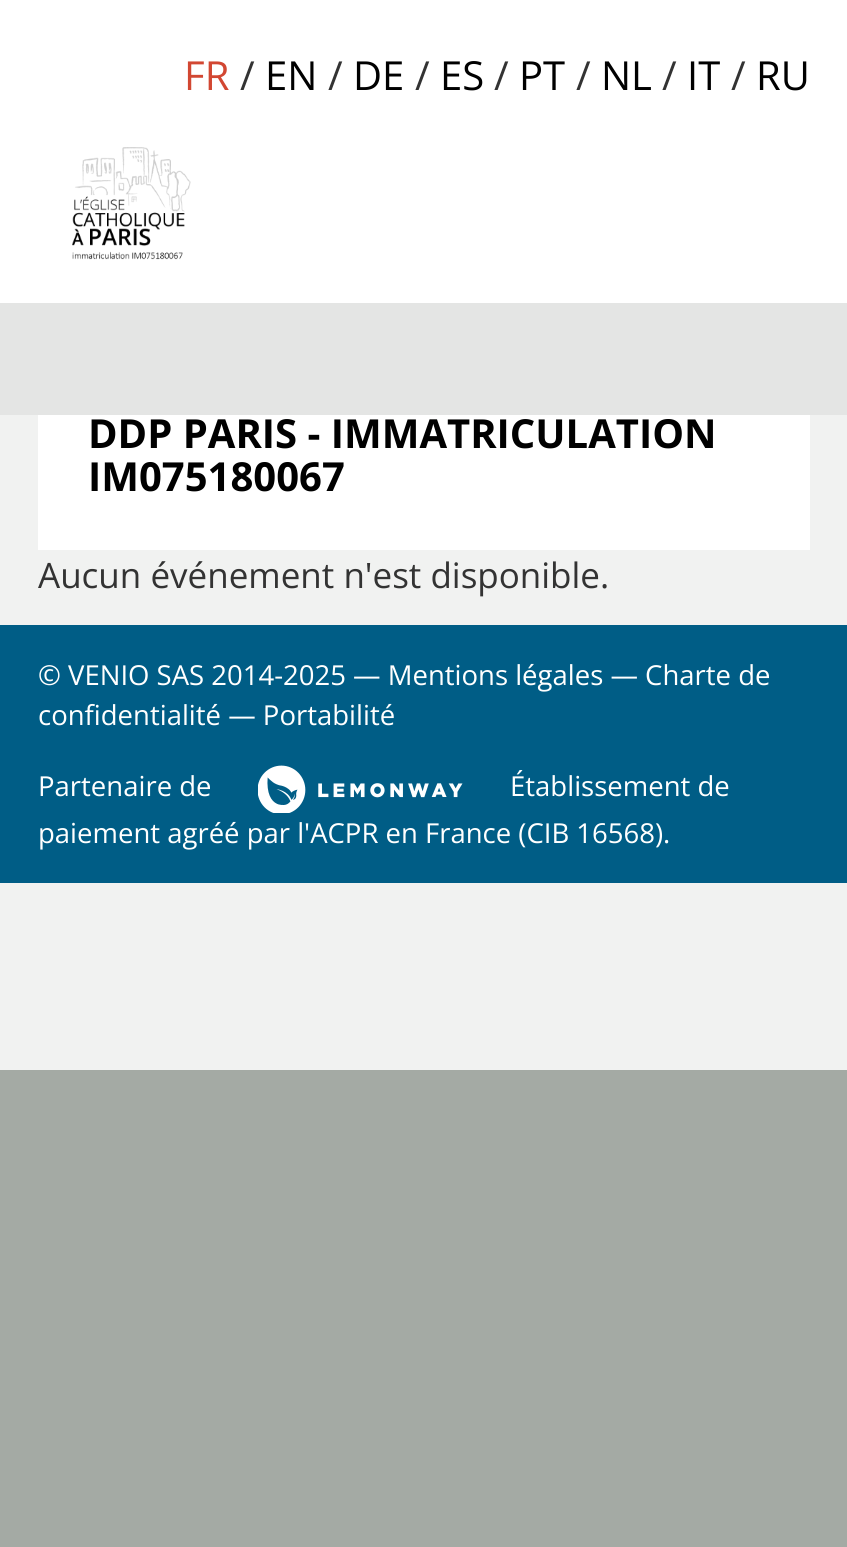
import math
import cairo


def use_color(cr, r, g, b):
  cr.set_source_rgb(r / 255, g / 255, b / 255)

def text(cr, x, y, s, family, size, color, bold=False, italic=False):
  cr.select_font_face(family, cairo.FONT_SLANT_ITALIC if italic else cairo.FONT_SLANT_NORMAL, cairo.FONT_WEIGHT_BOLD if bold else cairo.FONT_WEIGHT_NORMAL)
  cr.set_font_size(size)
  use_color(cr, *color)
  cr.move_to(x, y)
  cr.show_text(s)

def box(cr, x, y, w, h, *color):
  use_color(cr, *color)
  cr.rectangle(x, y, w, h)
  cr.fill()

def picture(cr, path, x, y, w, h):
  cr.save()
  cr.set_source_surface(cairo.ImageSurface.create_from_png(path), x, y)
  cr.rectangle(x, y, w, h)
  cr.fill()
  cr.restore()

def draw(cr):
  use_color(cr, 164, 170, 164)
  cr.paint()
  box(cr, 0, 0, 847, 303, 255, 255, 255)
  picture(cr, "img_01.png", 72, 147, 119, 113)
  box(cr, 0, 303, 847, 112, 228, 229, 228)
  box(cr, 0, 415, 847, 655, 241, 242, 241)
  box(cr, 38, 415, 772, 135, 255, 255, 255)
  box(cr, 0, 625, 847, 258, 0, 93, 134)
  picture(cr, "img_02.png", 258, 765, 205, 48)
  text(cr, 184, 90, "FR", "Open Sans", 40, (210, 71, 50))
  text(cr, 240, 90, "/", "Open Sans", 40, (51, 51, 51))
  text(cr, 265, 90, "EN", "Open Sans", 40, (0, 0, 0))
  text(cr, 328, 90, "/", "Open Sans", 40, (51, 51, 51))
  text(cr, 353, 90, "DE", "Open Sans", 40, (0, 0, 0))
  text(cr, 415, 90, "/", "Open Sans", 40, (51, 51, 51))
  text(cr, 440, 90, "ES", "Open Sans", 40, (0, 0, 0))
  text(cr, 494, 90, "/", "Open Sans", 40, (51, 51, 51))
  text(cr, 519, 90, "PT", "Open Sans", 40, (0, 0, 0))
  text(cr, 576, 90, "/", "Open Sans", 40, (51, 51, 51))
  text(cr, 601, 90, "NL", "Open Sans", 40, (0, 0, 0))
  text(cr, 662, 90, "/", "Open Sans", 40, (51, 51, 51))
  text(cr, 687, 90, "IT", "Open Sans", 40, (0, 0, 0))
  text(cr, 731, 90, "/", "Open Sans", 40, (51, 51, 51))
  text(cr, 756, 90, "RU", "Open Sans", 40, (0, 0, 0))
  text(cr, 88, 448, "DDP PARIS - IMMATRICULATION", "Open Sans", 40, (0, 0, 0), bold=True)
  text(cr, 88, 491, "IM075180067", "Open Sans", 40, (0, 0, 0), bold=True)
  text(cr, 38, 588, "Aucun événement n'est disponible.", "Open Sans", 35, (51, 51, 51))
  text(cr, 38, 685, "© VENIO SAS 2014-2025 — Mentions légales — Charte de", "Open Sans", 27.5, (255, 255, 255))
  text(cr, 38, 725, "confidentialité — Portabilité", "Open Sans", 27.5, (255, 255, 255))
  text(cr, 38, 796, "Partenaire de", "Open Sans", 27.5, (255, 255, 255))
  text(cr, 510, 796, "Établissement de", "Open Sans", 27.5, (255, 255, 255))
  text(cr, 38, 843, "paiement agréé par l'ACPR en France (CIB 16568).", "Open Sans", 27.5, (255, 255, 255))


surface = cairo.ImageSurface(cairo.FORMAT_RGB24, 847, 1547)
cr = cairo.Context(surface)
options = cairo.FontOptions()
options.set_hint_metrics(cairo.HINT_METRICS_OFF)
options.set_hint_style(cairo.HINT_STYLE_NONE)
cr.set_font_options(options)
cr.set_miter_limit(4)
draw(cr)
surface.write_to_png("out.png")
